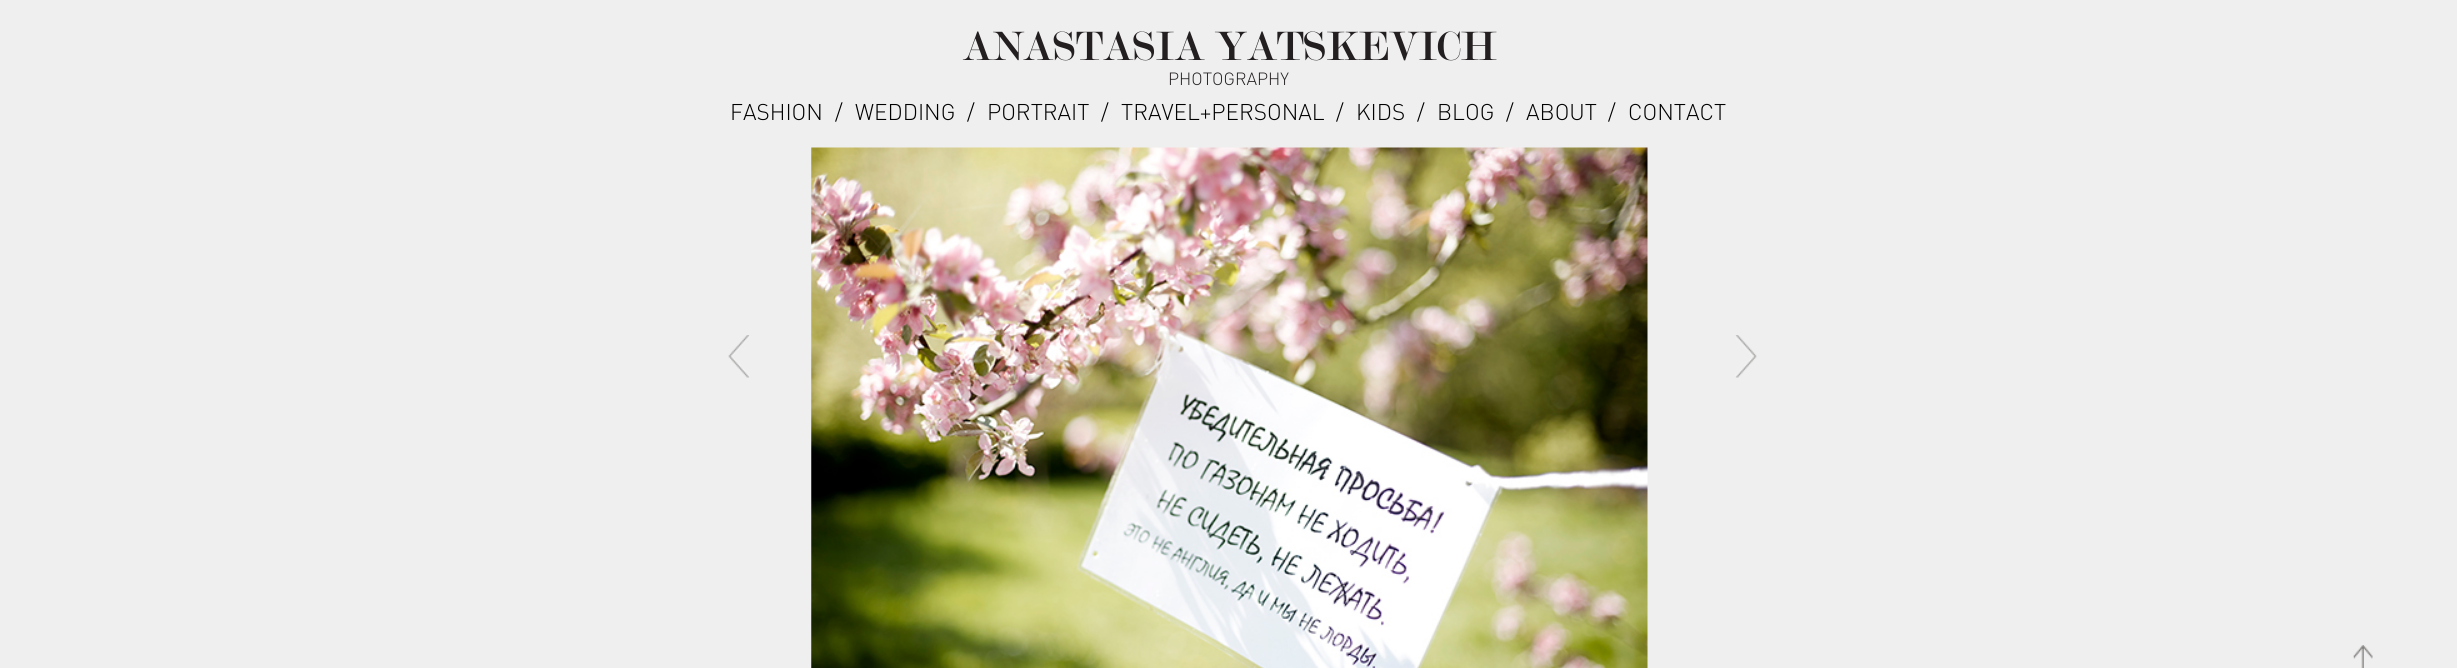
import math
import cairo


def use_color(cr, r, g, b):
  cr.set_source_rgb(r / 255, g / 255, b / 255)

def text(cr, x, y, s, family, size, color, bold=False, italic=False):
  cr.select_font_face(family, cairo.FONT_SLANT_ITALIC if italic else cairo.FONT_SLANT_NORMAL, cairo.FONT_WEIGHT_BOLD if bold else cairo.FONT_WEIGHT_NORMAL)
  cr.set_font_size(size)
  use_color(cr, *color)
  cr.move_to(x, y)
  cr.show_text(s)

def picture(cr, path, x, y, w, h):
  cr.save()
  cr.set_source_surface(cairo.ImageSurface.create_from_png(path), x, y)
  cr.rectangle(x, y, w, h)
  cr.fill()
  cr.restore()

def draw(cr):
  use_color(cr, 239, 239, 239)
  cr.paint()
  picture(cr, "img_01.png", 728, 335, 22, 43)
  picture(cr, "img_02.png", 811, 147, 837, 521)
  picture(cr, "img_03.png", 1735, 335, 22, 43)
  picture(cr, "img_04.png", 2353, 645, 20, 23)
  text(cr, 962, 60, "ANASTASIA YATSKEVICH", "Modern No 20", 43.75, (35, 31, 32))
  text(cr, 1168, 85, "PHOTOGRAPHY", "DIN Light", 17.5, (35, 31, 32))
  text(cr, 730, 120, "FASHION", "DIN Light", 22.5, (0, 0, 0))
  text(cr, 835, 120, "/", "DIN Light", 22.5, (0, 0, 0))
  text(cr, 855, 120, "WEDDING", "DIN Light", 22.5, (0, 0, 0))
  text(cr, 967, 120, "/", "DIN Light", 22.5, (0, 0, 0))
  text(cr, 987, 120, "PORTRAIT", "DIN Light", 22.5, (0, 0, 0))
  text(cr, 1101, 120, "/", "DIN Light", 22.5, (0, 0, 0))
  text(cr, 1121, 120, "TRAVEL+PERSONAL", "DIN Light", 22.5, (0, 0, 0))
  text(cr, 1336, 120, "/", "DIN Light", 22.5, (0, 0, 0))
  text(cr, 1356, 120, "KIDS", "DIN Light", 22.5, (0, 0, 0))
  text(cr, 1417, 120, "/", "DIN Light", 22.5, (0, 0, 0))
  text(cr, 1437, 120, "BLOG", "DIN Light", 22.5, (0, 0, 0))
  text(cr, 1506, 120, "/", "DIN Light", 22.5, (0, 0, 0))
  text(cr, 1526, 120, "ABOUT", "DIN Light", 22.5, (0, 0, 0))
  text(cr, 1608, 120, "/", "DIN Light", 22.5, (0, 0, 0))
  text(cr, 1628, 120, "CONTACT", "DIN Light", 22.5, (0, 0, 0))


surface = cairo.ImageSurface(cairo.FORMAT_RGB24, 2457, 668)
cr = cairo.Context(surface)
options = cairo.FontOptions()
options.set_hint_metrics(cairo.HINT_METRICS_OFF)
options.set_hint_style(cairo.HINT_STYLE_NONE)
cr.set_font_options(options)
cr.set_miter_limit(4)
draw(cr)
surface.write_to_png("out.png")
